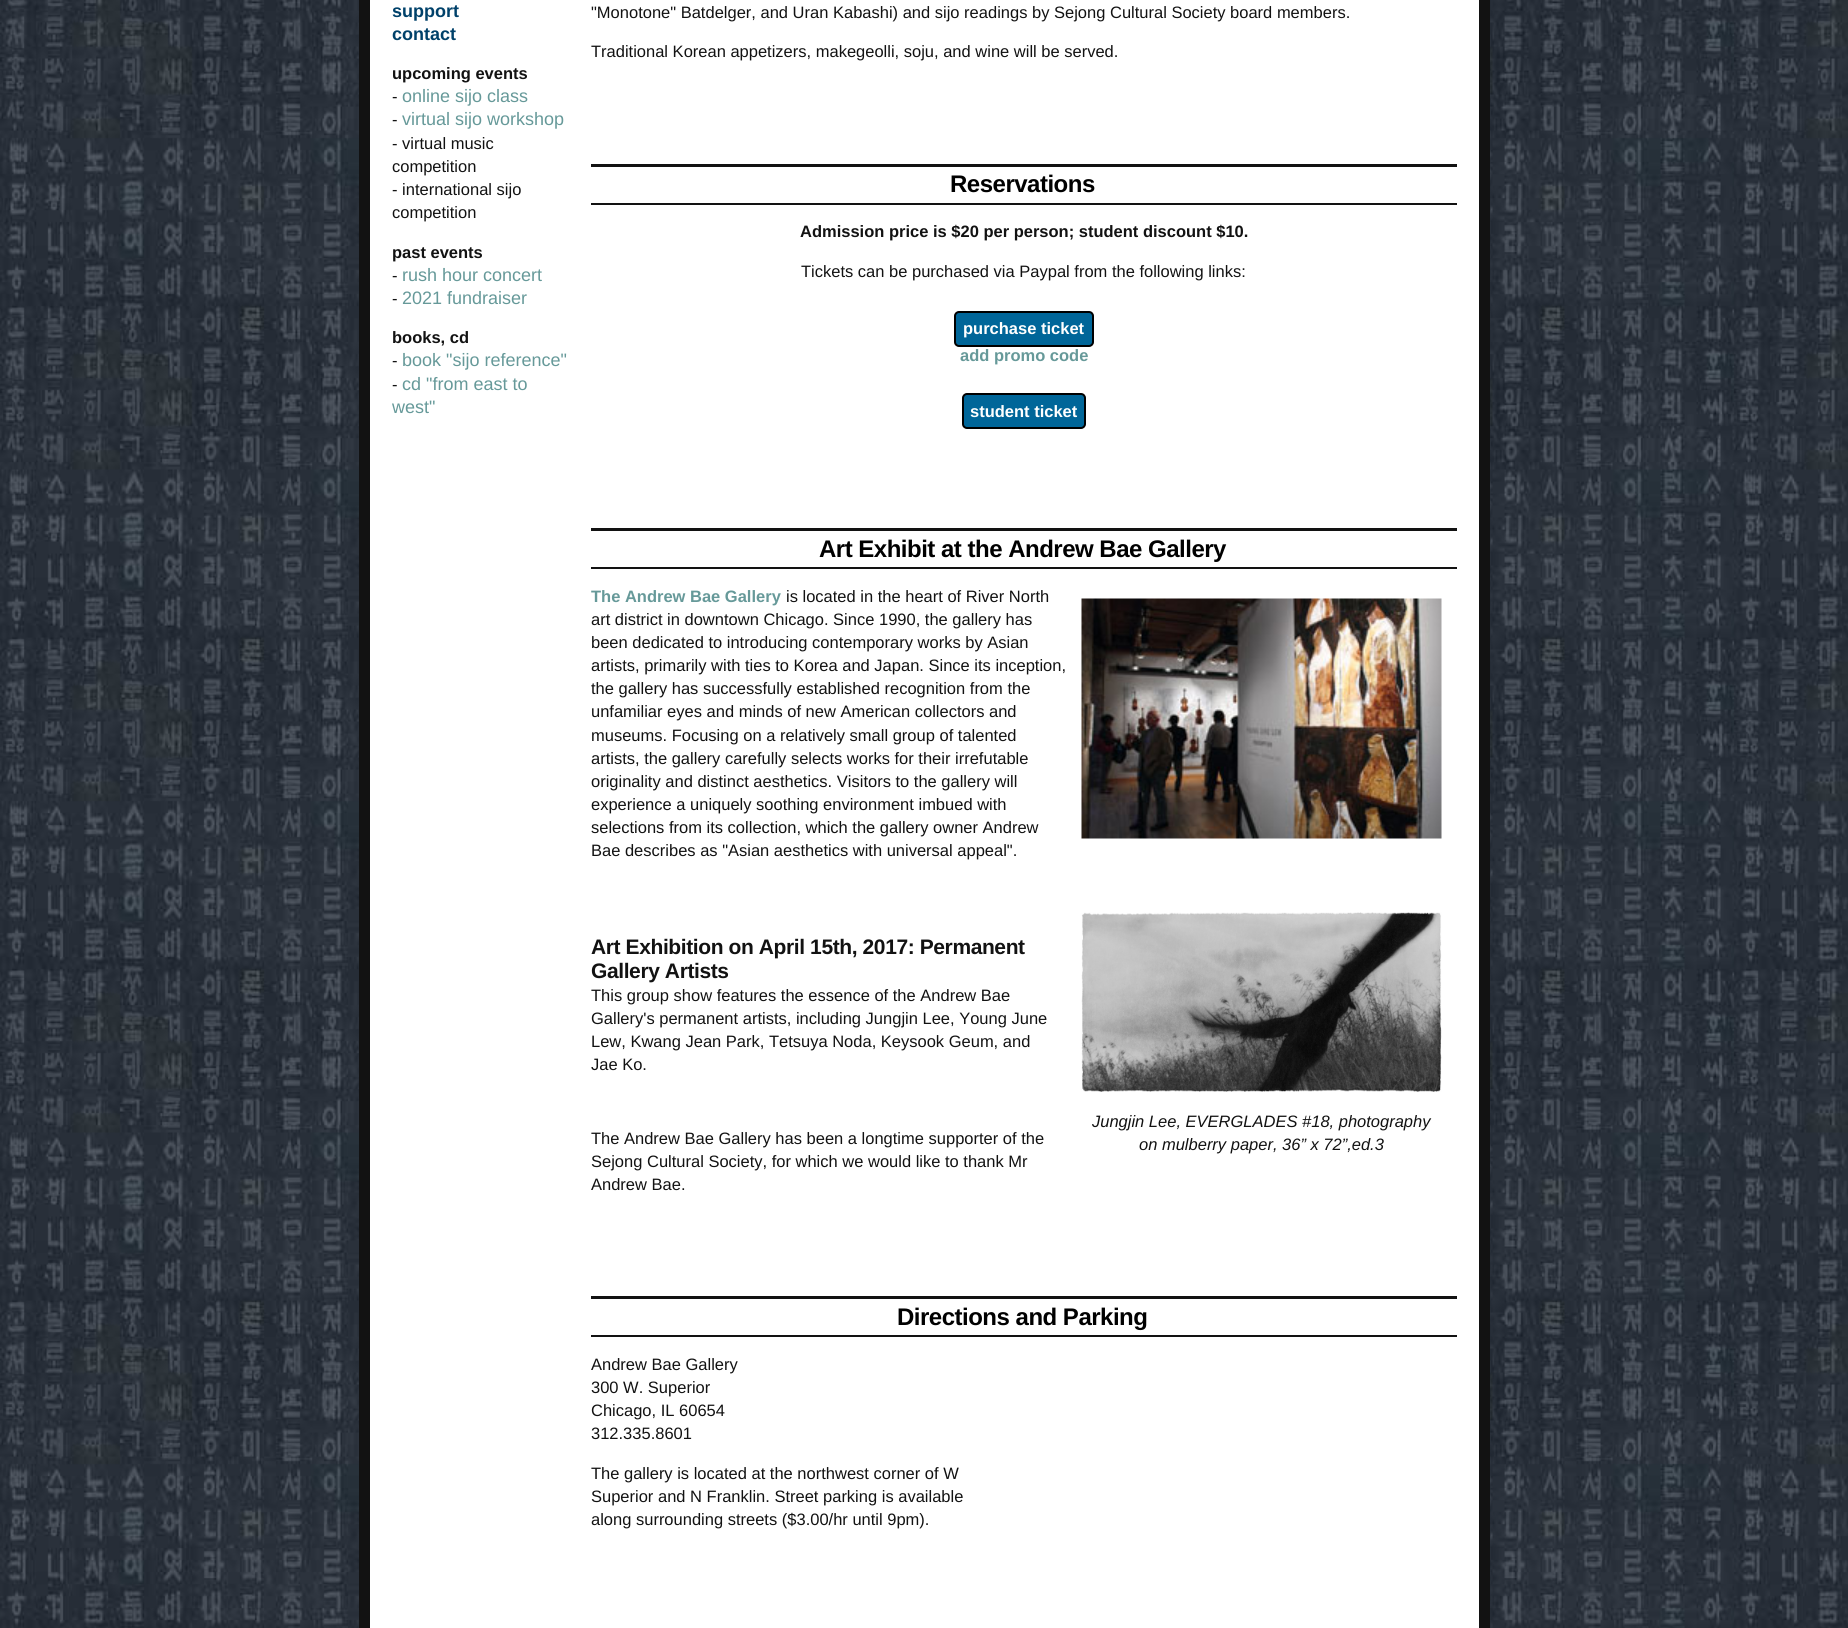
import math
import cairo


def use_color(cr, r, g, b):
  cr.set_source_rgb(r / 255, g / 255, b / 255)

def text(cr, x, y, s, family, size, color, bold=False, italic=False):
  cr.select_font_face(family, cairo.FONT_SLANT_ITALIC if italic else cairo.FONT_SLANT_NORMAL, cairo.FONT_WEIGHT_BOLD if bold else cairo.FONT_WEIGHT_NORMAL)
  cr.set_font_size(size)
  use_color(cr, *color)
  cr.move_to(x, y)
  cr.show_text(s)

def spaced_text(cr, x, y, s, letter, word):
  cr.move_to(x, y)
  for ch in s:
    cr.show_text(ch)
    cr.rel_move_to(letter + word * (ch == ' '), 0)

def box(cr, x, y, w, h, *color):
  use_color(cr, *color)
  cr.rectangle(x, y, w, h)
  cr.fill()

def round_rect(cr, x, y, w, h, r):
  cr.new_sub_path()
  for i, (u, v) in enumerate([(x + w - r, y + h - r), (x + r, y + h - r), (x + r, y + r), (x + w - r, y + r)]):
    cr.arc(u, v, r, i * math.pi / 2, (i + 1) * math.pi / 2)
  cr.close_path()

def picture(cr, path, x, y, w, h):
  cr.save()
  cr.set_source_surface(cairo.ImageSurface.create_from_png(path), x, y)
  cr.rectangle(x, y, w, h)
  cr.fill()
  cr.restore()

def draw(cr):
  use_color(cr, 255, 255, 255)
  cr.paint()
  picture(cr, "img_01.png", 0, 0, 1848, 1628)
  use_color(cr, 255, 255, 255)
  cr.rectangle(364.5, -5.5, 1120, 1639)
  cr.fill_preserve()
  use_color(cr, 18, 18, 18)
  cr.set_line_width(11)
  cr.stroke()
  box(cr, 591, 164, 866, 3, 18, 18, 18)
  box(cr, 591, 203, 866, 2, 18, 18, 18)
  use_color(cr, 0, 102, 153)
  round_rect(cr, 955, 312, 138, 34, 4)
  cr.fill_preserve()
  use_color(cr, 0, 0, 0)
  cr.set_line_width(2)
  cr.stroke()
  use_color(cr, 0, 102, 153)
  round_rect(cr, 963, 394, 122, 34, 4)
  cr.fill_preserve()
  use_color(cr, 0, 0, 0)
  cr.stroke()
  box(cr, 591, 528, 866, 3, 18, 18, 18)
  box(cr, 591, 567, 866, 2, 18, 18, 18)
  picture(cr, "img_02.png", 1081, 598, 361, 241)
  picture(cr, "img_03.png", 1081, 912, 361, 180)
  box(cr, 591, 1296, 866, 3, 18, 18, 18)
  box(cr, 591, 1335, 866, 2, 18, 18, 18)
  text(cr, 392, 17, "support", "Liberation Sans", 18, (0, 65, 106), bold=True)
  text(cr, 392, 40, "contact", "Liberation Sans", 18, (0, 65, 106), bold=True)
  text(cr, 392, 79, "upcoming events", "Liberation Sans", 16.5, (18, 18, 18), bold=True)
  text(cr, 392, 102, "-", "Liberation Sans", 16.5, (18, 18, 18))
  text(cr, 402, 102, "online sijo class", "Liberation Sans", 18, (102, 153, 153))
  text(cr, 392, 125, "-", "Liberation Sans", 16.5, (18, 18, 18))
  text(cr, 402, 125, "virtual sijo workshop", "Liberation Sans", 18, (102, 153, 153))
  text(cr, 392, 149, "- virtual music", "Liberation Sans", 16.5, (18, 18, 18))
  text(cr, 392, 172, "competition", "Liberation Sans", 16.5, (18, 18, 18))
  text(cr, 392, 195, "- international sijo", "Liberation Sans", 16.5, (18, 18, 18))
  text(cr, 392, 218, "competition", "Liberation Sans", 16.5, (18, 18, 18))
  text(cr, 392, 258, "past events", "Liberation Sans", 16.5, (18, 18, 18), bold=True)
  text(cr, 392, 281, "-", "Liberation Sans", 16.5, (18, 18, 18))
  text(cr, 402, 281, "rush hour concert", "Liberation Sans", 18, (102, 153, 153))
  text(cr, 392, 304, "-", "Liberation Sans", 16.5, (18, 18, 18))
  text(cr, 402, 304, "2021 fundraiser", "Liberation Sans", 18, (102, 153, 153))
  text(cr, 392, 343, "books, cd", "Liberation Sans", 16.5, (18, 18, 18), bold=True)
  text(cr, 392, 366, "-", "Liberation Sans", 16.5, (18, 18, 18))
  text(cr, 402, 366, "book \"sijo reference\"", "Liberation Sans", 18, (102, 153, 153))
  text(cr, 392, 390, "-", "Liberation Sans", 16.5, (18, 18, 18))
  text(cr, 402, 390, "cd \"from east to", "Liberation Sans", 18, (102, 153, 153))
  text(cr, 392, 413, "west\"", "Liberation Sans", 18, (102, 153, 153))
  text(cr, 591, 18, "\"Monotone\" Batdelger, and Uran Kabashi) and sijo readings by Sejong Cultural Society board members.", "Liberation Sans", 16.5, (18, 18, 18))
  text(cr, 591, 57, "Traditional Korean appetizers, makegeolli, soju, and wine will be served.", "Liberation Sans", 16.5, (18, 18, 18))
  cr.select_font_face("Liberation Sans", cairo.FONT_SLANT_NORMAL, cairo.FONT_WEIGHT_BOLD)
  cr.set_font_size(24)
  use_color(cr, 0, 0, 0)
  spaced_text(cr, 950, 192, "Reservations", -0.5, 0)
  text(cr, 800, 237, "Admission price is $20 per person; student discount $10.", "Liberation Sans", 16.5, (18, 18, 18), bold=True)
  text(cr, 801, 277, "Tickets can be purchased via Paypal from the following links:", "Liberation Sans", 16.5, (18, 18, 18))
  text(cr, 963, 334, "purchase ticket", "Liberation Sans", 16.5, (255, 255, 255), bold=True)
  text(cr, 960, 361, "add promo code", "Liberation Sans", 16.5, (102, 153, 153), bold=True)
  text(cr, 970, 417, "student ticket", "Liberation Sans", 16.5, (255, 255, 255), bold=True)
  cr.set_font_size(24)
  use_color(cr, 0, 0, 0)
  spaced_text(cr, 819, 557, "Art Exhibit at the Andrew Bae Gallery", -0.5, 0)
  text(cr, 591, 602, "The Andrew Bae Gallery", "Liberation Sans", 16.5, (102, 153, 153), bold=True)
  text(cr, 786, 602, "is located in the heart of River North", "Liberation Sans", 16.5, (18, 18, 18))
  text(cr, 591, 625, "art district in downtown Chicago. Since 1990, the gallery has", "Liberation Sans", 16.5, (18, 18, 18))
  text(cr, 591, 648, "been dedicated to introducing contemporary works by Asian", "Liberation Sans", 16.5, (18, 18, 18))
  text(cr, 591, 671, "artists, primarily with ties to Korea and Japan. Since its inception,", "Liberation Sans", 16.5, (18, 18, 18))
  text(cr, 591, 694, "the gallery has successfully established recognition from the", "Liberation Sans", 16.5, (18, 18, 18))
  text(cr, 591, 717, "unfamiliar eyes and minds of new American collectors and", "Liberation Sans", 16.5, (18, 18, 18))
  text(cr, 591, 741, "museums. Focusing on a relatively small group of talented", "Liberation Sans", 16.5, (18, 18, 18))
  text(cr, 591, 764, "artists, the gallery carefully selects works for their irrefutable", "Liberation Sans", 16.5, (18, 18, 18))
  text(cr, 591, 787, "originality and distinct aesthetics. Visitors to the gallery will", "Liberation Sans", 16.5, (18, 18, 18))
  text(cr, 591, 810, "experience a uniquely soothing environment imbued with", "Liberation Sans", 16.5, (18, 18, 18))
  text(cr, 591, 833, "selections from its collection, which the gallery owner Andrew", "Liberation Sans", 16.5, (18, 18, 18))
  text(cr, 591, 856, "Bae describes as \"Asian aesthetics with universal appeal\".", "Liberation Sans", 16.5, (18, 18, 18))
  cr.select_font_face("Liberation Sans", cairo.FONT_SLANT_NORMAL, cairo.FONT_WEIGHT_BOLD)
  cr.set_font_size(21)
  spaced_text(cr, 591, 954, "Art Exhibition on April 15th, 2017: Permanent", -0.4, 0)
  spaced_text(cr, 591, 978, "Gallery Artists", -0.4, 0)
  text(cr, 591, 1001, "This group show features the essence of the Andrew Bae", "Liberation Sans", 16.5, (18, 18, 18))
  text(cr, 591, 1024, "Gallery's permanent artists, including Jungjin Lee, Young June", "Liberation Sans", 16.5, (18, 18, 18))
  text(cr, 591, 1047, "Lew, Kwang Jean Park, Tetsuya Noda, Keysook Geum, and", "Liberation Sans", 16.5, (18, 18, 18))
  text(cr, 591, 1070, "Jae Ko.", "Liberation Sans", 16.5, (18, 18, 18))
  text(cr, 591, 1144, "The Andrew Bae Gallery has been a longtime supporter of the", "Liberation Sans", 16.5, (18, 18, 18))
  text(cr, 591, 1167, "Sejong Cultural Society, for which we would like to thank Mr", "Liberation Sans", 16.5, (18, 18, 18))
  text(cr, 591, 1190, "Andrew Bae.", "Liberation Sans", 16.5, (18, 18, 18))
  text(cr, 1092, 1127, "Jungjin Lee, EVERGLADES #18, photography", "Liberation Sans", 16.5, (18, 18, 18), italic=True)
  text(cr, 1139, 1150, "on mulberry paper, 36” x 72”,ed.3", "Liberation Sans", 16.5, (18, 18, 18), italic=True)
  cr.select_font_face("Liberation Sans", cairo.FONT_SLANT_NORMAL, cairo.FONT_WEIGHT_BOLD)
  cr.set_font_size(24)
  use_color(cr, 0, 0, 0)
  spaced_text(cr, 897, 1325, "Directions and Parking", -0.5, 0)
  text(cr, 591, 1370, "Andrew Bae Gallery", "Liberation Sans", 16.5, (18, 18, 18))
  text(cr, 591, 1393, "300 W. Superior", "Liberation Sans", 16.5, (18, 18, 18))
  text(cr, 591, 1416, "Chicago, IL 60654", "Liberation Sans", 16.5, (18, 18, 18))
  text(cr, 591, 1439, "312.335.8601", "Liberation Sans", 16.5, (18, 18, 18))
  text(cr, 591, 1479, "The gallery is located at the northwest corner of W", "Liberation Sans", 16.5, (18, 18, 18))
  text(cr, 591, 1502, "Superior and N Franklin. Street parking is available", "Liberation Sans", 16.5, (18, 18, 18))
  text(cr, 591, 1525, "along surrounding streets ($3.00/hr until 9pm).", "Liberation Sans", 16.5, (18, 18, 18))


surface = cairo.ImageSurface(cairo.FORMAT_RGB24, 1848, 1628)
cr = cairo.Context(surface)
options = cairo.FontOptions()
options.set_hint_metrics(cairo.HINT_METRICS_OFF)
options.set_hint_style(cairo.HINT_STYLE_NONE)
cr.set_font_options(options)
cr.set_miter_limit(4)
draw(cr)
surface.write_to_png("out.png")
